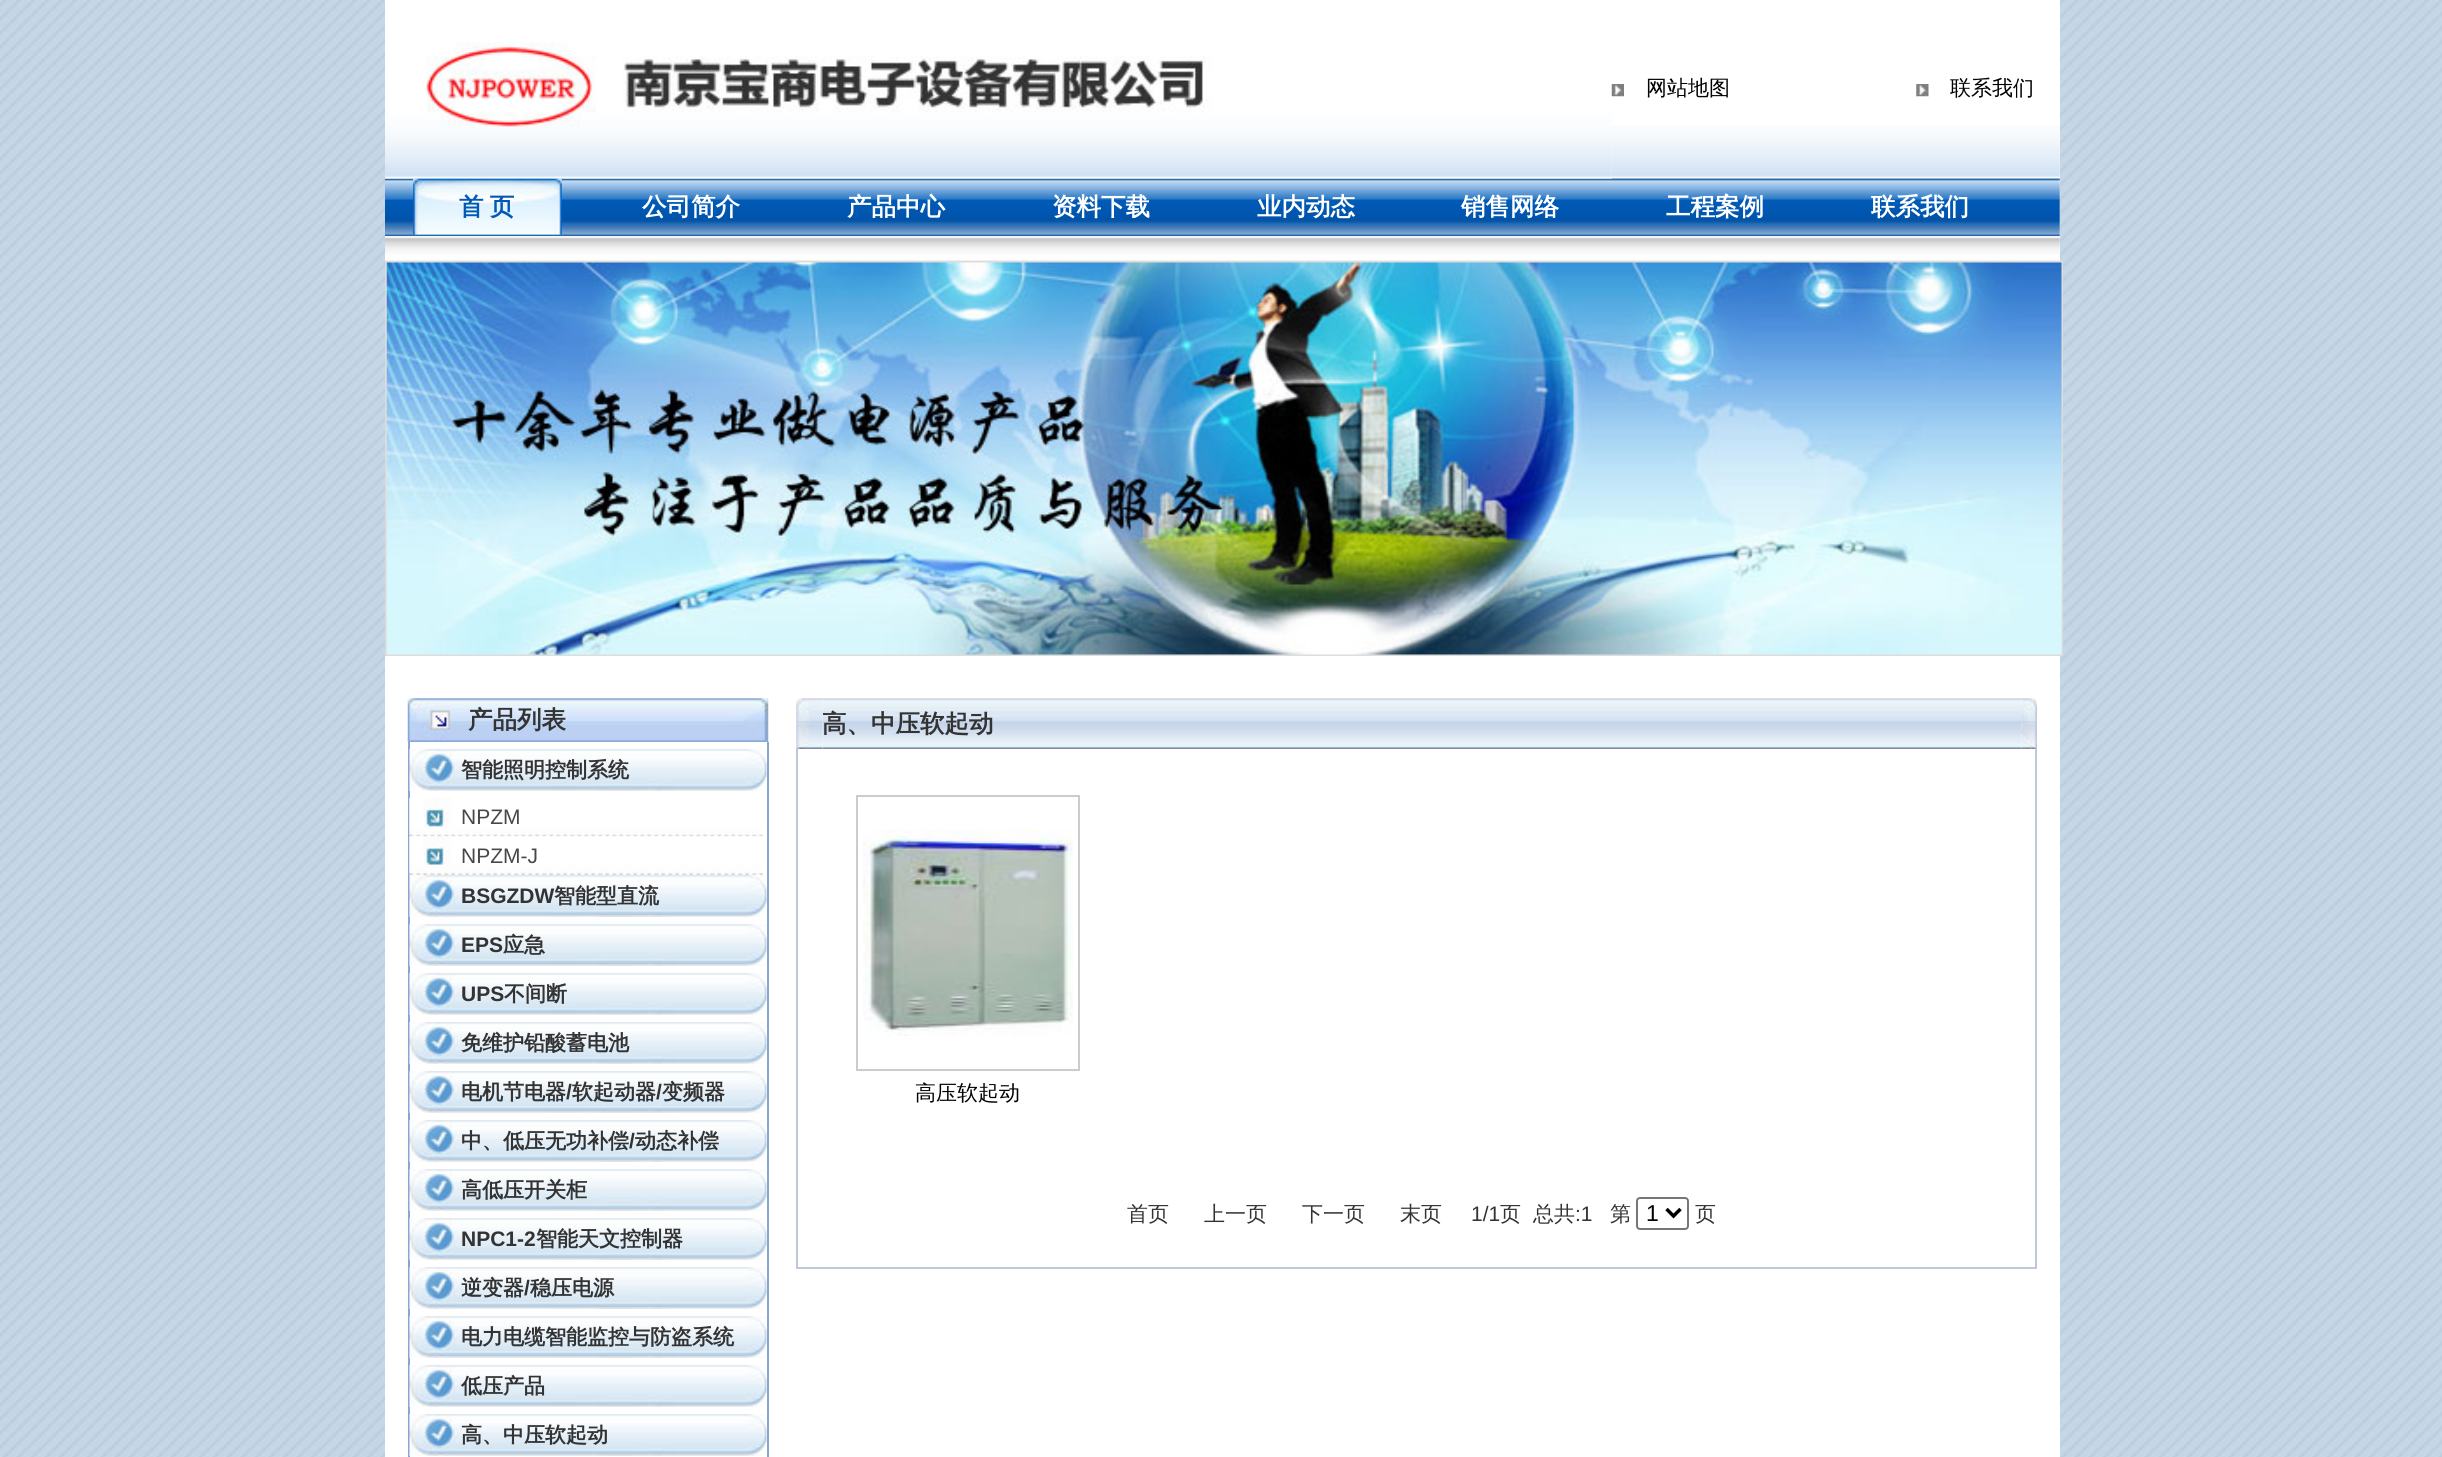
import math
import cairo


def use_color(cr, r, g, b):
  cr.set_source_rgb(r / 255, g / 255, b / 255)

def text(cr, x, y, s, family, size, color, bold=False, italic=False):
  cr.select_font_face(family, cairo.FONT_SLANT_ITALIC if italic else cairo.FONT_SLANT_NORMAL, cairo.FONT_WEIGHT_BOLD if bold else cairo.FONT_WEIGHT_NORMAL)
  cr.set_font_size(size)
  use_color(cr, *color)
  cr.move_to(x, y)
  cr.show_text(s)

def spaced_text(cr, x, y, s, letter, word):
  cr.move_to(x, y)
  for ch in s:
    cr.show_text(ch)
    cr.rel_move_to(letter + word * (ch == ' '), 0)

def box(cr, x, y, w, h, *color):
  use_color(cr, *color)
  cr.rectangle(x, y, w, h)
  cr.fill()

def round_rect(cr, x, y, w, h, r):
  cr.new_sub_path()
  for i, (u, v) in enumerate([(x + w - r, y + h - r), (x + r, y + h - r), (x + r, y + r), (x + w - r, y + r)]):
    cr.arc(u, v, r, i * math.pi / 2, (i + 1) * math.pi / 2)
  cr.close_path()

def picture(cr, path, x, y, w, h):
  cr.save()
  cr.set_source_surface(cairo.ImageSurface.create_from_png(path), x, y)
  cr.rectangle(x, y, w, h)
  cr.fill()
  cr.restore()

def draw(cr):
  use_color(cr, 255, 255, 255)
  cr.paint()
  picture(cr, "img_01.png", 0, 0, 2442, 1457)
  box(cr, 385, 0, 1675, 1457, 255, 255, 255)
  picture(cr, "img_03.png", 1611, 125, 449, 53)
  picture(cr, "img_06.png", 385, 178, 1675, 59)
  picture(cr, "img_07.png", 413, 178, 149, 57)
  picture(cr, "img_02.png", 385, 42, 1227, 137)
  picture(cr, "img_04.png", 1611, 84, 13, 13)
  picture(cr, "img_05.png", 1916, 84, 13, 13)
  picture(cr, "img_08.png", 385, 236, 1675, 25)
  cr.rectangle(386, 262, 1676, 393)
  use_color(cr, 221, 221, 221)
  cr.stroke()
  picture(cr, "img_09.png", 386, 262, 1676, 393)
  picture(cr, "img_10.png", 407, 698, 362, 44)
  box(cr, 767, 742, 2, 715, 136, 166, 210)
  box(cr, 408, 742, 2, 715, 136, 166, 210)
  picture(cr, "img_11.png", 409, 749, 358, 42)
  picture(cr, "img_12.png", 409, 798, 354, 39)
  picture(cr, "img_13.png", 409, 798, 354, 39)
  picture(cr, "img_14.png", 409, 836, 354, 39)
  picture(cr, "img_15.png", 409, 836, 354, 39)
  picture(cr, "img_11.png", 409, 875, 358, 42)
  picture(cr, "img_11.png", 409, 924, 358, 42)
  picture(cr, "img_11.png", 409, 973, 358, 42)
  picture(cr, "img_11.png", 409, 1022, 358, 42)
  picture(cr, "img_11.png", 409, 1071, 358, 42)
  picture(cr, "img_11.png", 409, 1120, 358, 42)
  picture(cr, "img_11.png", 409, 1169, 358, 42)
  picture(cr, "img_11.png", 409, 1218, 358, 42)
  picture(cr, "img_11.png", 409, 1267, 358, 42)
  picture(cr, "img_11.png", 409, 1316, 358, 42)
  picture(cr, "img_11.png", 409, 1365, 358, 42)
  picture(cr, "img_11.png", 409, 1414, 358, 42)
  picture(cr, "img_17.png", 822, 698, 361, 51)
  picture(cr, "img_16.png", 796, 698, 27, 51)
  picture(cr, "img_18.png", 1183, 698, 839, 51)
  picture(cr, "img_19.png", 2021, 698, 16, 51)
  box(cr, 2035, 749, 2, 520, 189, 200, 218)
  box(cr, 796, 1267, 1241, 2, 189, 200, 218)
  box(cr, 796, 749, 2, 520, 189, 200, 218)
  cr.rectangle(857, 796, 222, 274)
  use_color(cr, 204, 204, 204)
  cr.stroke()
  picture(cr, "img_20.png", 862, 829, 211, 207)
  round_rect(cr, 1637, 1198, 51, 31, 3)
  use_color(cr, 118, 118, 118)
  cr.stroke()
  cr.new_path()
  cr.move_to(1666.5, 1209)
  cr.line_to(1673.5, 1216)
  cr.line_to(1680.5, 1209)
  use_color(cr, 0, 0, 0)
  cr.set_line_width(3.5)
  cr.stroke()
  text(cr, 1646, 95, "网站地图", "WenQuanYi Zen Hei Medium", 21, (0, 0, 0))
  text(cr, 1950, 95, "联系我们", "WenQuanYi Zen Hei Medium", 21, (0, 0, 0))
  cr.select_font_face("WenQuanYi Zen Hei", cairo.FONT_SLANT_NORMAL, cairo.FONT_WEIGHT_BOLD)
  cr.set_font_size(24.5)
  use_color(cr, 0, 89, 181)
  spaced_text(cr, 459, 215, "首 页", 0, -1)
  text(cr, 642, 215, "公司简介", "WenQuanYi Zen Hei", 24.5, (255, 255, 255), bold=True)
  text(cr, 847, 215, "产品中心", "WenQuanYi Zen Hei", 24.5, (255, 255, 255), bold=True)
  text(cr, 1052, 215, "资料下载", "WenQuanYi Zen Hei", 24.5, (255, 255, 255), bold=True)
  text(cr, 1257, 215, "业内动态", "WenQuanYi Zen Hei", 24.5, (255, 255, 255), bold=True)
  text(cr, 1461, 215, "销售网络", "WenQuanYi Zen Hei", 24.5, (255, 255, 255), bold=True)
  text(cr, 1666, 215, "工程案例", "WenQuanYi Zen Hei", 24.5, (255, 255, 255), bold=True)
  text(cr, 1871, 215, "联系我们", "WenQuanYi Zen Hei", 24.5, (255, 255, 255), bold=True)
  text(cr, 468, 728, "产品列表", "WenQuanYi Zen Hei", 24.5, (51, 51, 51), bold=True)
  text(cr, 461, 777, "智能照明控制系统", "WenQuanYi Zen Hei", 21, (51, 51, 51), bold=True)
  text(cr, 461, 824, "NPZM", "Liberation Sans", 21, (71, 71, 71))
  text(cr, 461, 863, "NPZM-J", "Liberation Sans", 21, (71, 71, 71))
  text(cr, 461, 903, "BSGZDW", "Liberation Sans", 21, (51, 51, 51), bold=True)
  text(cr, 554, 903, "智能型直流", "WenQuanYi Zen Hei", 21, (51, 51, 51), bold=True)
  text(cr, 461, 952, "EPS", "Liberation Sans", 21, (51, 51, 51), bold=True)
  text(cr, 503, 952, "应急", "WenQuanYi Zen Hei", 21, (51, 51, 51), bold=True)
  text(cr, 461, 1001, "UPS", "Liberation Sans", 21, (51, 51, 51), bold=True)
  text(cr, 504, 1001, "不间断", "WenQuanYi Zen Hei", 21, (51, 51, 51), bold=True)
  text(cr, 461, 1050, "免维护铅酸蓄电池", "WenQuanYi Zen Hei", 21, (51, 51, 51), bold=True)
  text(cr, 461, 1099, "电机节电器", "WenQuanYi Zen Hei", 21, (51, 51, 51), bold=True)
  text(cr, 566, 1099, "/", "Liberation Sans", 21, (51, 51, 51), bold=True)
  text(cr, 572, 1099, "软起动器", "WenQuanYi Zen Hei", 21, (51, 51, 51), bold=True)
  text(cr, 656, 1099, "/", "Liberation Sans", 21, (51, 51, 51), bold=True)
  text(cr, 662, 1099, "变频器", "WenQuanYi Zen Hei", 21, (51, 51, 51), bold=True)
  text(cr, 461, 1148, "中、低压无功补偿", "WenQuanYi Zen Hei", 21, (51, 51, 51), bold=True)
  text(cr, 629, 1148, "/", "Liberation Sans", 21, (51, 51, 51), bold=True)
  text(cr, 635, 1148, "动态补偿", "WenQuanYi Zen Hei", 21, (51, 51, 51), bold=True)
  text(cr, 461, 1197, "高低压开关柜", "WenQuanYi Zen Hei", 21, (51, 51, 51), bold=True)
  text(cr, 461, 1246, "NPC1-2", "Liberation Sans", 21, (51, 51, 51), bold=True)
  text(cr, 536, 1246, "智能天文控制器", "WenQuanYi Zen Hei", 21, (51, 51, 51), bold=True)
  text(cr, 461, 1295, "逆变器", "WenQuanYi Zen Hei", 21, (51, 51, 51), bold=True)
  text(cr, 524, 1295, "/", "Liberation Sans", 21, (51, 51, 51), bold=True)
  text(cr, 530, 1295, "稳压电源", "WenQuanYi Zen Hei", 21, (51, 51, 51), bold=True)
  text(cr, 461, 1344, "电力电缆智能监控与防盗系统", "WenQuanYi Zen Hei", 21, (51, 51, 51), bold=True)
  text(cr, 461, 1393, "低压产品", "WenQuanYi Zen Hei", 21, (51, 51, 51), bold=True)
  text(cr, 461, 1442, "高、中压软起动", "WenQuanYi Zen Hei", 21, (51, 51, 51), bold=True)
  text(cr, 822, 732, "高、中压软起动", "WenQuanYi Zen Hei", 24.5, (51, 51, 51), bold=True)
  text(cr, 915, 1100, "高压软起动", "WenQuanYi Zen Hei Medium", 21, (0, 0, 0))
  text(cr, 1127, 1221, "首页", "WenQuanYi Zen Hei Medium", 21, (51, 51, 51))
  text(cr, 1204, 1221, "上一页", "WenQuanYi Zen Hei Medium", 21, (51, 51, 51))
  text(cr, 1302, 1221, "下一页", "WenQuanYi Zen Hei Medium", 21, (51, 51, 51))
  text(cr, 1400, 1221, "末页", "WenQuanYi Zen Hei Medium", 21, (51, 51, 51))
  text(cr, 1471, 1221, "1/1", "Liberation Sans", 21, (51, 51, 51))
  text(cr, 1500, 1221, "页", "WenQuanYi Zen Hei Medium", 21, (51, 51, 51))
  text(cr, 1533, 1221, "总共", "WenQuanYi Zen Hei Medium", 21, (51, 51, 51))
  text(cr, 1575, 1221, ":1", "Liberation Sans", 21, (51, 51, 51))
  text(cr, 1610, 1221, "第", "WenQuanYi Zen Hei Medium", 21, (51, 51, 51))
  text(cr, 1646, 1221, "1", "Liberation Sans", 23, (0, 0, 0))
  text(cr, 1695, 1221, "页", "WenQuanYi Zen Hei Medium", 21, (51, 51, 51))


surface = cairo.ImageSurface(cairo.FORMAT_RGB24, 2442, 1457)
cr = cairo.Context(surface)
options = cairo.FontOptions()
options.set_hint_metrics(cairo.HINT_METRICS_OFF)
options.set_hint_style(cairo.HINT_STYLE_NONE)
cr.set_font_options(options)
cr.set_miter_limit(4)
draw(cr)
surface.write_to_png("out.png")
